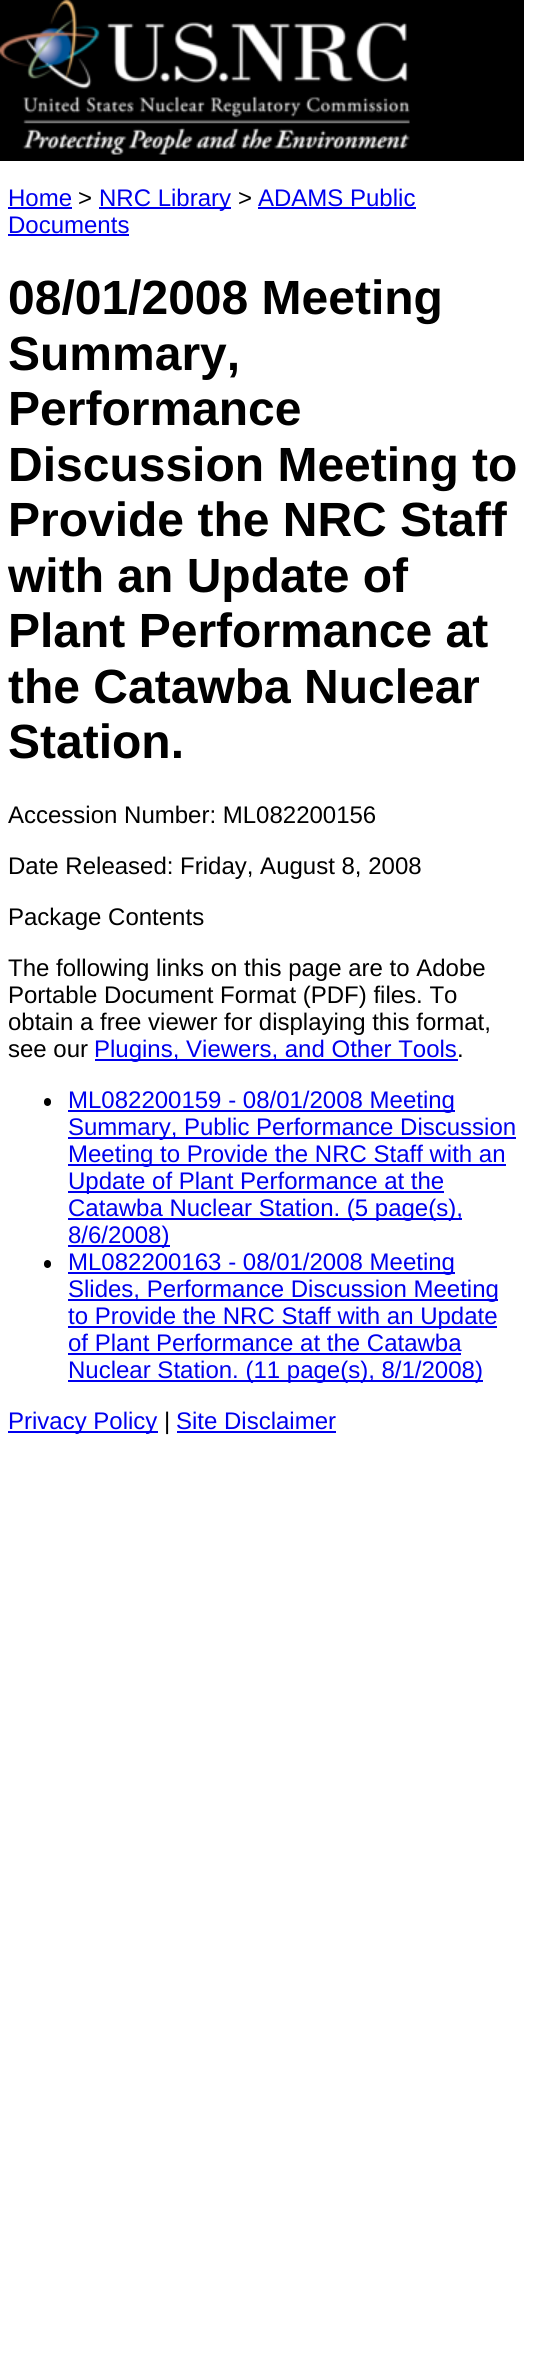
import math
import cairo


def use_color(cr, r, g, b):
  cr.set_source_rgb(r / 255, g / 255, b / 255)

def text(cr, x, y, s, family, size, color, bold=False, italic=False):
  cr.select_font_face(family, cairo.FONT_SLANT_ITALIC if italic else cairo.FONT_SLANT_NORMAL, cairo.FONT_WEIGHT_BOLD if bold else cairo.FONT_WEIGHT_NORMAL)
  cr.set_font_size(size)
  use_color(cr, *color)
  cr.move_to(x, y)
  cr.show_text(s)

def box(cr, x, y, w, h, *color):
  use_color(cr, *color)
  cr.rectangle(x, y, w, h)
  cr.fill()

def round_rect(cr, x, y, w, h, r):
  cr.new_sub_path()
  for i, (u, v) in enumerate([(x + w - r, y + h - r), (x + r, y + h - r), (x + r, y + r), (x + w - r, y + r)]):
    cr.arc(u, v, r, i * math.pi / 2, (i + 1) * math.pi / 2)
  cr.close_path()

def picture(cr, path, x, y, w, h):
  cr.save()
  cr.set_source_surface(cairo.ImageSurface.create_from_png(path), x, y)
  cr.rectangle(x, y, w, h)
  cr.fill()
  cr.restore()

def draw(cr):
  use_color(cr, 255, 255, 255)
  cr.paint()
  box(cr, 0, 0, 524, 161, 0, 0, 0)
  picture(cr, "img_01.png", 0, 0, 410, 155)
  box(cr, 8, 207, 64, 2, 0, 0, 238)
  box(cr, 99, 207, 132, 2, 0, 0, 238)
  box(cr, 258, 207, 158, 2, 0, 0, 238)
  box(cr, 8, 234, 121, 2, 0, 0, 238)
  box(cr, 95, 1059, 363, 2, 0, 0, 238)
  use_color(cr, 0, 0, 0)
  round_rect(cr, 44, 1098, 7, 8, 3.5)
  cr.fill()
  box(cr, 68, 1110, 387, 2, 0, 0, 238)
  box(cr, 68, 1137, 448, 2, 0, 0, 238)
  box(cr, 68, 1164, 438, 2, 0, 0, 238)
  box(cr, 68, 1191, 376, 2, 0, 0, 238)
  box(cr, 68, 1218, 394, 2, 0, 0, 238)
  box(cr, 68, 1245, 102, 2, 0, 0, 238)
  use_color(cr, 0, 0, 0)
  round_rect(cr, 44, 1260, 7, 8, 3.5)
  cr.fill()
  box(cr, 68, 1272, 387, 2, 0, 0, 238)
  box(cr, 68, 1299, 430, 2, 0, 0, 238)
  box(cr, 68, 1326, 429, 2, 0, 0, 238)
  box(cr, 68, 1353, 393, 2, 0, 0, 238)
  box(cr, 68, 1380, 415, 2, 0, 0, 238)
  box(cr, 8, 1431, 150, 2, 0, 0, 238)
  box(cr, 177, 1431, 159, 2, 0, 0, 238)
  text(cr, 8, 206, "Home", "Liberation Sans", 24, (0, 0, 238))
  text(cr, 78, 206, ">", "Liberation Sans", 24, (0, 0, 0))
  text(cr, 99, 206, "NRC Library", "Liberation Sans", 24, (0, 0, 238))
  text(cr, 238, 206, ">", "Liberation Sans", 24, (0, 0, 0))
  text(cr, 258, 206, "ADAMS Public", "Liberation Sans", 24, (0, 0, 238))
  text(cr, 8, 233, "Documents", "Liberation Sans", 24, (0, 0, 238))
  text(cr, 8, 314, "08/01/2008 Meeting", "Liberation Sans", 48, (0, 0, 0), bold=True)
  text(cr, 8, 370, "Summary,", "Liberation Sans", 48, (0, 0, 0), bold=True)
  text(cr, 8, 425, "Performance", "Liberation Sans", 48, (0, 0, 0), bold=True)
  text(cr, 8, 481, "Discussion Meeting to", "Liberation Sans", 48, (0, 0, 0), bold=True)
  text(cr, 8, 536, "Provide the NRC Staff", "Liberation Sans", 48, (0, 0, 0), bold=True)
  text(cr, 8, 592, "with an Update of", "Liberation Sans", 48, (0, 0, 0), bold=True)
  text(cr, 8, 647, "Plant Performance at", "Liberation Sans", 48, (0, 0, 0), bold=True)
  text(cr, 8, 703, "the Catawba Nuclear", "Liberation Sans", 48, (0, 0, 0), bold=True)
  text(cr, 8, 758, "Station.", "Liberation Sans", 48, (0, 0, 0), bold=True)
  text(cr, 8, 823, "Accession Number: ML082200156", "Liberation Sans", 24, (0, 0, 0))
  text(cr, 8, 874, "Date Released: Friday, August 8, 2008", "Liberation Sans", 24, (0, 0, 0))
  text(cr, 8, 925, "Package Contents", "Liberation Sans", 24, (0, 0, 0))
  text(cr, 8, 976, "The following links on this page are to Adobe", "Liberation Sans", 24, (0, 0, 0))
  text(cr, 8, 1003, "Portable Document Format (PDF) files. To", "Liberation Sans", 24, (0, 0, 0))
  text(cr, 8, 1030, "obtain a free viewer for displaying this format,", "Liberation Sans", 24, (0, 0, 0))
  text(cr, 8, 1057, "see our", "Liberation Sans", 24, (0, 0, 0))
  text(cr, 94, 1057, "Plugins, Viewers, and Other Tools", "Liberation Sans", 24, (0, 0, 238))
  text(cr, 457, 1057, ".", "Liberation Sans", 24, (0, 0, 0))
  text(cr, 68, 1108, "ML082200159 - 08/01/2008 Meeting", "Liberation Sans", 24, (0, 0, 238))
  text(cr, 68, 1135, "Summary, Public Performance Discussion", "Liberation Sans", 24, (0, 0, 238))
  text(cr, 68, 1162, "Meeting to Provide the NRC Staff with an", "Liberation Sans", 24, (0, 0, 238))
  text(cr, 68, 1189, "Update of Plant Performance at the", "Liberation Sans", 24, (0, 0, 238))
  text(cr, 68, 1216, "Catawba Nuclear Station. (5 page(s),", "Liberation Sans", 24, (0, 0, 238))
  text(cr, 68, 1243, "8/6/2008)", "Liberation Sans", 24, (0, 0, 238))
  text(cr, 68, 1270, "ML082200163 - 08/01/2008 Meeting", "Liberation Sans", 24, (0, 0, 238))
  text(cr, 68, 1297, "Slides, Performance Discussion Meeting", "Liberation Sans", 24, (0, 0, 238))
  text(cr, 68, 1324, "to Provide the NRC Staff with an Update", "Liberation Sans", 24, (0, 0, 238))
  text(cr, 68, 1351, "of Plant Performance at the Catawba", "Liberation Sans", 24, (0, 0, 238))
  text(cr, 68, 1378, "Nuclear Station. (11 page(s), 8/1/2008)", "Liberation Sans", 24, (0, 0, 238))
  text(cr, 8, 1429, "Privacy Policy", "Liberation Sans", 24, (0, 0, 238))
  text(cr, 164, 1429, "|", "Liberation Sans", 24, (0, 0, 0))
  text(cr, 176, 1429, "Site Disclaimer", "Liberation Sans", 24, (0, 0, 238))


surface = cairo.ImageSurface(cairo.FORMAT_RGB24, 535, 2369)
cr = cairo.Context(surface)
options = cairo.FontOptions()
options.set_hint_metrics(cairo.HINT_METRICS_OFF)
options.set_hint_style(cairo.HINT_STYLE_NONE)
cr.set_font_options(options)
cr.set_miter_limit(4)
draw(cr)
surface.write_to_png("out.png")
